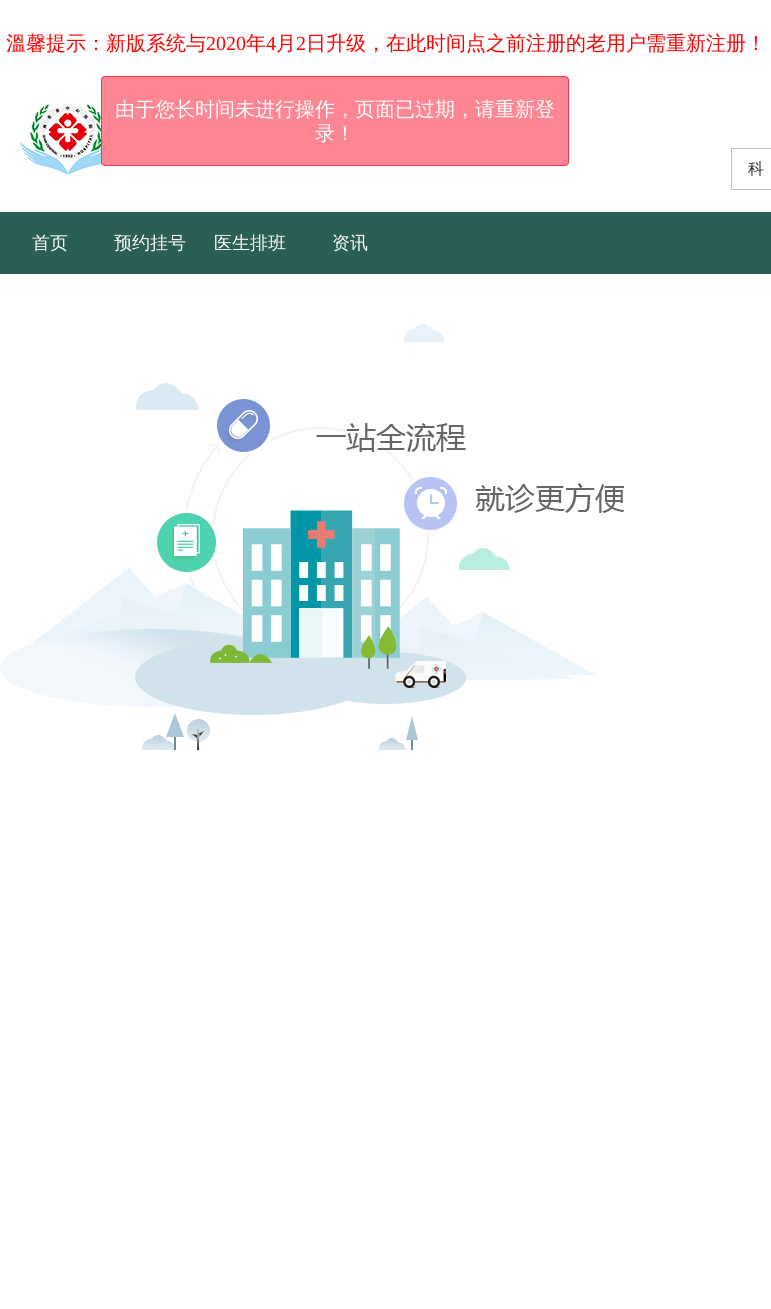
import math
import cairo


def use_color(cr, r, g, b):
  cr.set_source_rgb(r / 255, g / 255, b / 255)

def text(cr, x, y, s, family, size, color, bold=False, italic=False):
  cr.select_font_face(family, cairo.FONT_SLANT_ITALIC if italic else cairo.FONT_SLANT_NORMAL, cairo.FONT_WEIGHT_BOLD if bold else cairo.FONT_WEIGHT_NORMAL)
  cr.set_font_size(size)
  use_color(cr, *color)
  cr.move_to(x, y)
  cr.show_text(s)

def box(cr, x, y, w, h, *color):
  use_color(cr, *color)
  cr.rectangle(x, y, w, h)
  cr.fill()

def round_rect(cr, x, y, w, h, r):
  cr.new_sub_path()
  for i, (u, v) in enumerate([(x + w - r, y + h - r), (x + r, y + h - r), (x + r, y + r), (x + w - r, y + r)]):
    cr.arc(u, v, r, i * math.pi / 2, (i + 1) * math.pi / 2)
  cr.close_path()

def picture(cr, path, x, y, w, h):
  cr.save()
  cr.set_source_surface(cairo.ImageSurface.create_from_png(path), x, y)
  cr.rectangle(x, y, w, h)
  cr.fill()
  cr.restore()

def draw(cr):
  use_color(cr, 255, 255, 255)
  cr.paint()
  picture(cr, "img_01.png", 20, 104, 86, 71)
  use_color(cr, 253, 134, 146)
  round_rect(cr, 101.5, 76.5, 467, 89, 3.5)
  cr.fill_preserve()
  use_color(cr, 249, 55, 74)
  cr.set_line_width(1)
  cr.stroke()
  cr.rectangle(731.5, 148.5, 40, 41)
  use_color(cr, 191, 191, 191)
  cr.stroke()
  box(cr, 0, 212, 771, 62, 43, 94, 84)
  picture(cr, "img_02.png", 0, 324, 625, 426)
  text(cr, 6, 50, "溫馨提示：新版系统与", "WenQuanYi Zen Hei Medium", 20, (255, 0, 0))
  text(cr, 206, 50, "2020", "Liberation Serif", 20, (255, 0, 0))
  text(cr, 246, 50, "年", "WenQuanYi Zen Hei Medium", 20, (255, 0, 0))
  text(cr, 266, 50, "4", "Liberation Serif", 20, (255, 0, 0))
  text(cr, 276, 50, "月", "WenQuanYi Zen Hei Medium", 20, (255, 0, 0))
  text(cr, 296, 50, "2", "Liberation Serif", 20, (255, 0, 0))
  text(cr, 306, 50, "日升级，在此时间点之前注册的老用户需重新注册！", "WenQuanYi Zen Hei Medium", 20, (255, 0, 0))
  text(cr, 115, 116, "由于您长时间未进行操作，页面已过期，请重新登", "WenQuanYi Zen Hei Medium", 20, (255, 255, 255))
  text(cr, 315, 140, "录！", "WenQuanYi Zen Hei Medium", 20, (255, 255, 255))
  text(cr, 748, 174, "科", "WenQuanYi Zen Hei Medium", 16, (47, 47, 47))
  text(cr, 32, 249, "首页", "WenQuanYi Zen Hei Medium", 18, (255, 255, 255))
  text(cr, 114, 249, "预约挂号", "WenQuanYi Zen Hei Medium", 18, (255, 255, 255))
  text(cr, 214, 249, "医生排班", "WenQuanYi Zen Hei Medium", 18, (255, 255, 255))
  text(cr, 332, 249, "资讯", "WenQuanYi Zen Hei Medium", 18, (255, 255, 255))


surface = cairo.ImageSurface(cairo.FORMAT_RGB24, 771, 1309)
cr = cairo.Context(surface)
options = cairo.FontOptions()
options.set_hint_metrics(cairo.HINT_METRICS_OFF)
options.set_hint_style(cairo.HINT_STYLE_NONE)
cr.set_font_options(options)
cr.set_miter_limit(4)
draw(cr)
surface.write_to_png("out.png")
